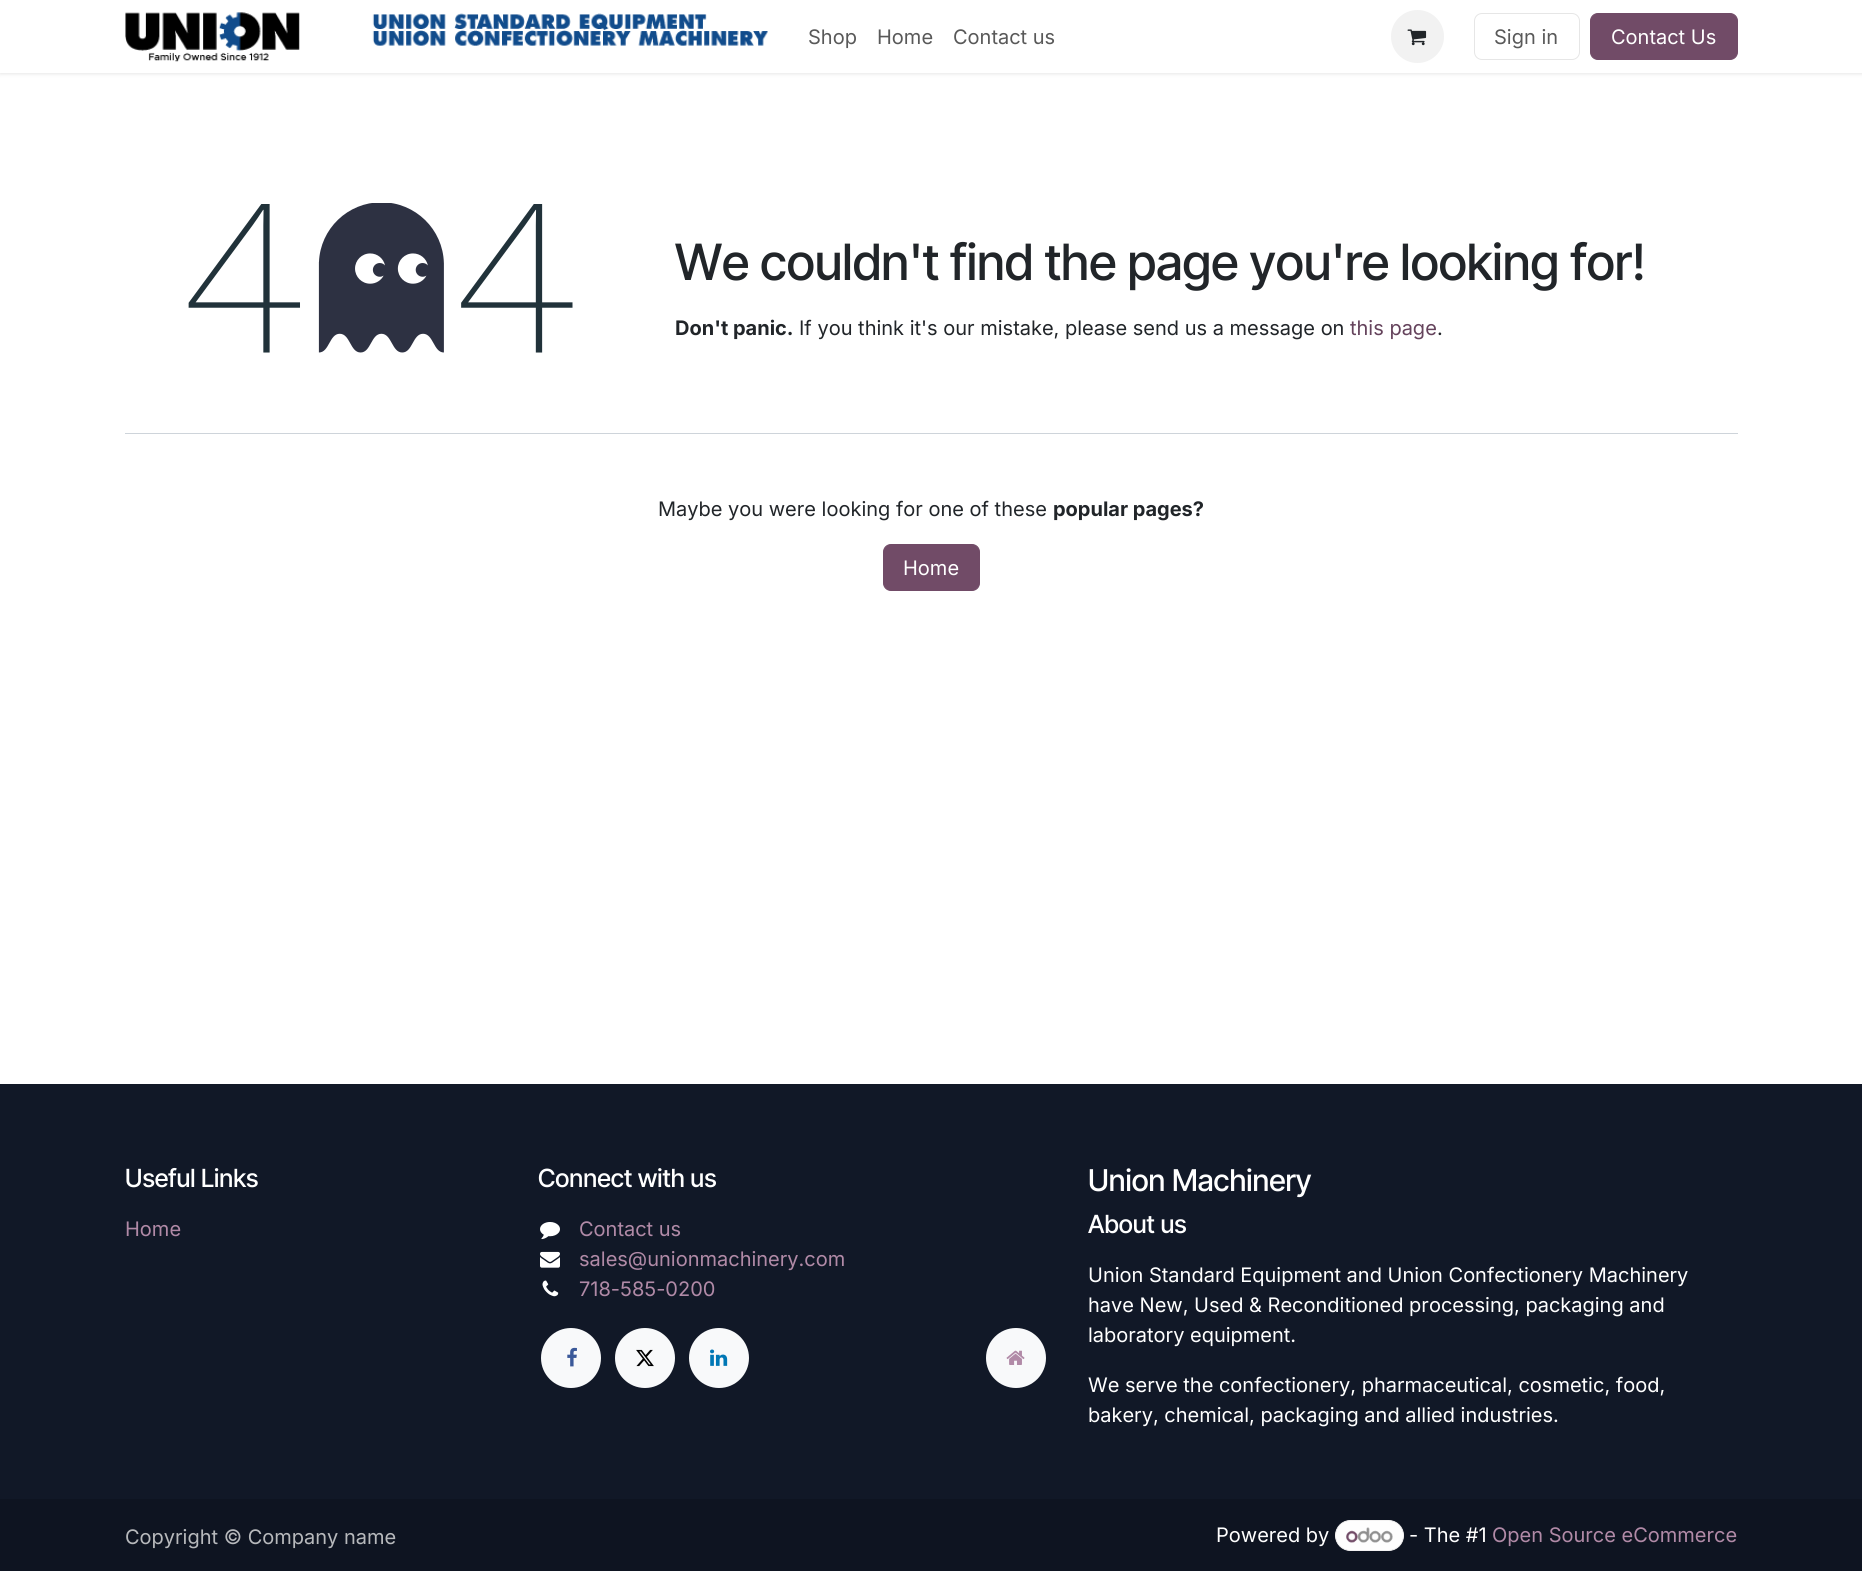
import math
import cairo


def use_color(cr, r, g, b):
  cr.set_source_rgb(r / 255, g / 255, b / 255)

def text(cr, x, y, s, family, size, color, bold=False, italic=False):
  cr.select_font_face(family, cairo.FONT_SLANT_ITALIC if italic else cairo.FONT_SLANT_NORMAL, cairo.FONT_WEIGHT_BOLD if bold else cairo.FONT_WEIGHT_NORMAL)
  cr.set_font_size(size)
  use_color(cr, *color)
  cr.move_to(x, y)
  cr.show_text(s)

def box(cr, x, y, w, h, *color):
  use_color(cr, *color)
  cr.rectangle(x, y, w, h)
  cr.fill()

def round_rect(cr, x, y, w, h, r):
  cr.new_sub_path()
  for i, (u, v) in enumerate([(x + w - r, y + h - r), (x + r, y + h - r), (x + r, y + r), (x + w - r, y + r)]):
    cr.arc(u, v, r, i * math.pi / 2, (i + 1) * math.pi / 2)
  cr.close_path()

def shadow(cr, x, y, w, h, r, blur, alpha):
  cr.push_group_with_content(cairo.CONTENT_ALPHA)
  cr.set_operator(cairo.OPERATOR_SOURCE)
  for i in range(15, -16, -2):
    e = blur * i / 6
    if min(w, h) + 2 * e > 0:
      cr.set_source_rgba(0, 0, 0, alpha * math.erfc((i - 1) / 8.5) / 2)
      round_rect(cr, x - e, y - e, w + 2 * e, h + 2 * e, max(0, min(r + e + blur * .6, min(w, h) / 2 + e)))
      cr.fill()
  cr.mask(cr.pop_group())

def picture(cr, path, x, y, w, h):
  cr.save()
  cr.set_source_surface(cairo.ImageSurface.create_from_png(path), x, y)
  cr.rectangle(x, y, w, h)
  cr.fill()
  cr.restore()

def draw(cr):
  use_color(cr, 255, 255, 255)
  cr.paint()
  use_color(cr, 0, 0, 0)
  shadow(cr, 0, 1, 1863, 73, 0, 2, 0.1)
  box(cr, 0, 0, 1862, 73, 255, 255, 255)
  picture(cr, "img_01.png", 125, 12, 643, 50)
  use_color(cr, 242, 242, 242)
  cr.arc(1417.5, 36.5, 26.5, 0, 2 * math.pi)
  cr.fill()
  picture(cr, "img_02.png", 1407, 29, 20, 17)
  round_rect(cr, 1474.5, 13.5, 105, 46, 7.5)
  use_color(cr, 230, 230, 230)
  cr.set_line_width(1)
  cr.stroke()
  use_color(cr, 113, 75, 103)
  round_rect(cr, 1590.5, 13.5, 147, 46, 7.5)
  cr.fill_preserve()
  cr.stroke()
  picture(cr, "img_03.png", 188, 203, 385, 150)
  box(cr, 125, 433, 1613, 1, 206, 212, 218)
  use_color(cr, 113, 75, 103)
  round_rect(cr, 883.5, 544.5, 96, 46, 7.5)
  cr.fill_preserve()
  cr.stroke()
  box(cr, 0, 1084, 1862, 415, 17, 24, 39)
  picture(cr, "img_04.png", 540, 1222, 20, 18)
  picture(cr, "img_05.png", 540, 1251, 20, 17)
  picture(cr, "img_06.png", 542, 1280, 17, 17)
  use_color(cr, 248, 249, 250)
  cr.arc(571, 1358, 30, 0, 2 * math.pi)
  cr.fill()
  picture(cr, "img_07.png", 567, 1347, 10, 20)
  cr.arc(645, 1358, 30, 0, 2 * math.pi)
  cr.fill()
  picture(cr, "img_08.png", 636, 1349, 18, 18)
  cr.arc(719, 1358, 30, 0, 2 * math.pi)
  cr.fill()
  picture(cr, "img_09.png", 710, 1349, 18, 17)
  cr.arc(1016, 1358, 30, 0, 2 * math.pi)
  cr.fill()
  picture(cr, "img_10.png", 1006, 1350, 19, 15)
  box(cr, 0, 1499, 1862, 72, 14, 20, 33)
  use_color(cr, 254, 254, 254)
  round_rect(cr, 1335.5, 1520.5, 68, 30, 15)
  cr.fill_preserve()
  use_color(cr, 243, 242, 242)
  cr.stroke()
  picture(cr, "img_11.png", 1346, 1527, 47, 16)
  text(cr, 808, 44, "Shop", "Inter", 20, (89, 89, 89))
  text(cr, 877, 44, "Home", "Inter", 20, (89, 89, 89))
  text(cr, 953, 44, "Contact us", "Inter", 20, (89, 89, 89))
  text(cr, 1494, 44, "Sign in", "Inter", 20, (89, 89, 89))
  text(cr, 1611, 44, "Contact Us", "Inter", 20, (255, 255, 255))
  text(cr, 675, 280, "We couldn't find the page you're looking for!", "Inter Tight Medium", 50, (33, 37, 41))
  text(cr, 675, 335, "Don't panic.", "Inter", 20, (33, 37, 41), bold=True)
  text(cr, 799, 335, "If you think it's our mistake, please send us a message on", "Inter", 20, (33, 37, 41))
  text(cr, 1350, 335, "this page", "Inter", 20, (101, 67, 92))
  text(cr, 1437, 335, ".", "Inter", 20, (33, 37, 41))
  text(cr, 658, 516, "Maybe you were looking for one of these", "Inter", 20, (33, 37, 41))
  text(cr, 1053, 516, "popular pages?", "Inter", 20, (33, 37, 41), bold=True)
  text(cr, 903, 575, "Home", "Inter", 20, (255, 255, 255))
  text(cr, 125, 1187, "Useful Links", "Inter Tight Medium", 25, (255, 255, 255))
  text(cr, 125, 1236, "Home", "Inter", 20, (177, 138, 167))
  text(cr, 538, 1187, "Connect with us", "Inter Tight Medium", 25, (255, 255, 255))
  text(cr, 579, 1236, "Contact us", "Inter", 20, (177, 138, 167))
  text(cr, 579, 1266, "sales@unionmachinery.com", "Inter", 20, (177, 138, 167))
  text(cr, 579, 1296, "718-585-0200", "Inter", 20, (177, 138, 167))
  text(cr, 1088, 1191, "Union Machinery", "Inter Tight Medium", 30, (255, 255, 255))
  text(cr, 1088, 1233, "About us", "Inter Tight Medium", 25, (255, 255, 255))
  text(cr, 1088, 1282, "Union Standard Equipment and Union Confectionery Machinery", "Inter", 20, (255, 255, 255))
  text(cr, 1088, 1312, "have New, Used & Reconditioned processing, packaging and", "Inter", 20, (255, 255, 255))
  text(cr, 1088, 1342, "laboratory equipment.", "Inter", 20, (255, 255, 255))
  text(cr, 1088, 1392, "We serve the confectionery, pharmaceutical, cosmetic, food,", "Inter", 20, (255, 255, 255))
  text(cr, 1088, 1422, "bakery, chemical, packaging and allied industries.", "Inter", 20, (255, 255, 255))
  text(cr, 125, 1544, "Copyright © Company name", "Inter", 20, (183, 185, 188))
  text(cr, 1216, 1542, "Powered by", "Inter", 20, (255, 255, 255))
  text(cr, 1409, 1542, "- The #1", "Inter", 20, (255, 255, 255))
  text(cr, 1492, 1542, "Open Source eCommerce", "Inter", 20, (177, 138, 167))


surface = cairo.ImageSurface(cairo.FORMAT_RGB24, 1862, 1571)
cr = cairo.Context(surface)
options = cairo.FontOptions()
options.set_hint_metrics(cairo.HINT_METRICS_OFF)
options.set_hint_style(cairo.HINT_STYLE_NONE)
cr.set_font_options(options)
cr.set_miter_limit(4)
draw(cr)
surface.write_to_png("out.png")
